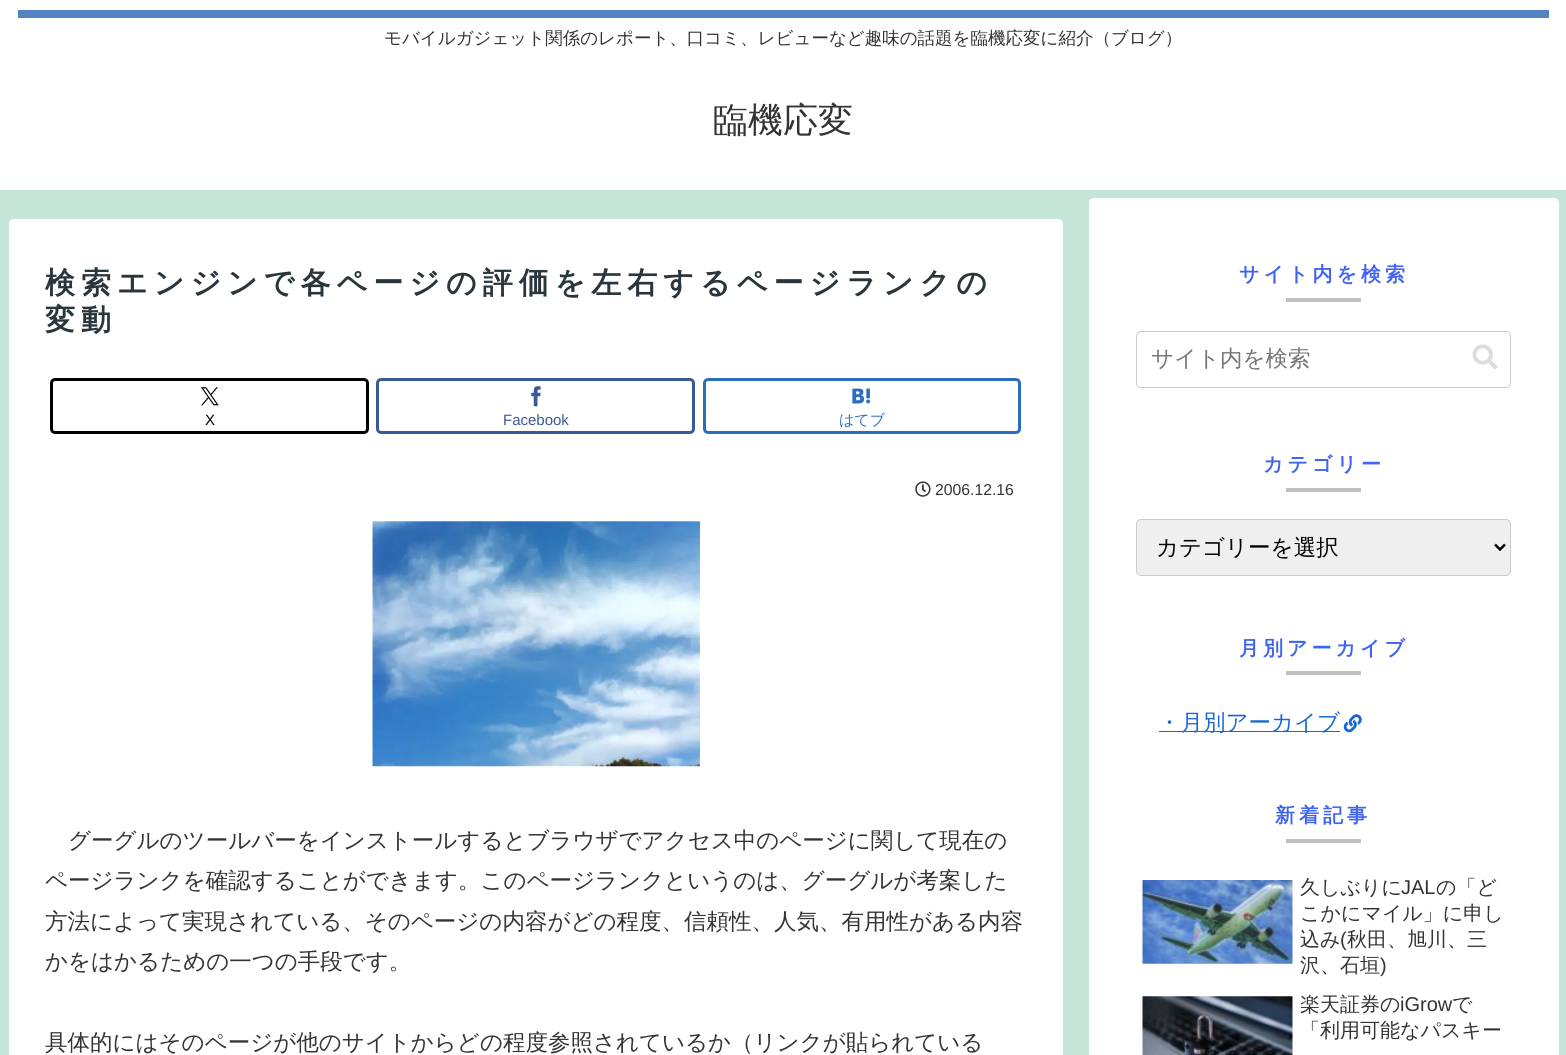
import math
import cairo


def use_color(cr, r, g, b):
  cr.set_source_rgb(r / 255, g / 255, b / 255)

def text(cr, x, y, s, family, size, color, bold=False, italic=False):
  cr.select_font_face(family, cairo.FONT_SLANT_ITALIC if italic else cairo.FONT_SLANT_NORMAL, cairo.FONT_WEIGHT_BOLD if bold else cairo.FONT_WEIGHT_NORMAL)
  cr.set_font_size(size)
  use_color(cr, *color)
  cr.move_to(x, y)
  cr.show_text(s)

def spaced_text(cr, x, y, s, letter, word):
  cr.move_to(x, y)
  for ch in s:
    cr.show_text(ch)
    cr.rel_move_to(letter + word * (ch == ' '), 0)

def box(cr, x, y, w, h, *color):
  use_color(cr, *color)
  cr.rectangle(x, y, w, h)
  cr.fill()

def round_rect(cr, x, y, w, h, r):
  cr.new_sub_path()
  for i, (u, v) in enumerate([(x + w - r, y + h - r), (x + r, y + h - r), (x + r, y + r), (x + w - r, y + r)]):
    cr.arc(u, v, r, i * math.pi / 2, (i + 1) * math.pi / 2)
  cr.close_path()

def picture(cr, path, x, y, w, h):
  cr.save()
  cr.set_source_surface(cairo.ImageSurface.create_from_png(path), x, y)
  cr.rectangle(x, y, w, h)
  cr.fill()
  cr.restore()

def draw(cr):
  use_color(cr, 198, 229, 217)
  cr.paint()
  box(cr, 0, 0, 1566, 190, 255, 255, 255)
  box(cr, 18, 10, 1531, 8, 83, 133, 194)
  use_color(cr, 255, 255, 255)
  round_rect(cr, 9, 219, 1054, 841, 5)
  cr.fill()
  round_rect(cr, 51.5, 379.5, 316, 53, 3.5)
  use_color(cr, 0, 0, 0)
  cr.set_line_width(3)
  cr.stroke()
  picture(cr, "img_01.png", 201, 387, 18, 19)
  round_rect(cr, 377.5, 379.5, 316, 53, 3.5)
  use_color(cr, 59, 89, 152)
  cr.stroke()
  picture(cr, "img_02.png", 531, 386, 10, 21)
  round_rect(cr, 704.5, 379.5, 315, 53, 3.5)
  use_color(cr, 44, 110, 189)
  cr.stroke()
  picture(cr, "img_03.png", 852, 388, 19, 16)
  picture(cr, "img_04.png", 915, 481, 16, 16)
  picture(cr, "img_05.png", 372, 521, 328, 246)
  use_color(cr, 255, 255, 255)
  round_rect(cr, 1089, 198, 470, 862, 5)
  cr.fill()
  box(cr, 1286, 298, 75, 4, 192, 192, 192)
  round_rect(cr, 1136.5, 331.5, 374, 56, 4.5)
  use_color(cr, 204, 204, 204)
  cr.set_line_width(1)
  cr.stroke()
  picture(cr, "img_06.png", 1472, 344, 26, 26)
  box(cr, 1286, 488, 75, 4, 192, 192, 192)
  use_color(cr, 239, 239, 239)
  round_rect(cr, 1136.5, 519.5, 374, 56, 4.5)
  cr.fill_preserve()
  use_color(cr, 204, 204, 204)
  cr.stroke()
  cr.new_path()
  cr.move_to(1495, 544.5)
  cr.line_to(1500, 549.5)
  cr.line_to(1505, 544.5)
  use_color(cr, 0, 0, 0)
  cr.set_line_width(2.5)
  cr.stroke()
  box(cr, 1286, 671, 75, 4, 192, 192, 192)
  box(cr, 1159, 731, 181, 1, 25, 103, 210)
  picture(cr, "img_07.png", 1343, 714, 19, 19)
  box(cr, 1286, 839, 75, 4, 192, 192, 192)
  picture(cr, "img_08.png", 1142, 880, 151, 84)
  picture(cr, "img_09.png", 1142, 996, 151, 59)
  text(cr, 384, 44, "モバイルガジェット関係のレポート、口コミ、レビューなど趣味の話題を臨機応変に紹介（ブログ）", "WenQuanYi Zen Hei Medium", 17.5, (51, 51, 51))
  text(cr, 713, 132, "臨機応変", "WenQuanYi Zen Hei Medium", 35, (51, 51, 51))
  cr.select_font_face("WenQuanYi Zen Hei", cairo.FONT_SLANT_NORMAL, cairo.FONT_WEIGHT_BOLD)
  cr.set_font_size(30)
  use_color(cr, 42, 54, 59)
  spaced_text(cr, 45, 293, "検索エンジンで各ページの評価を左右するページランクの", 6, 0)
  spaced_text(cr, 45, 330, "変動", 6, 0)
  text(cr, 205, 425, "X", "Liberation Sans", 15, (0, 0, 0))
  text(cr, 503, 425, "Facebook", "Liberation Sans", 15, (59, 89, 152))
  text(cr, 839, 425, "はてブ", "WenQuanYi Zen Hei Medium", 15, (44, 110, 189))
  text(cr, 935, 495, "2006.12.16", "Liberation Sans", 15.75, (51, 51, 51))
  text(cr, 68, 848, "グーグルのツールバーをインストールするとブラウザでアクセス中のページに関して現在の", "WenQuanYi Zen Hei Medium", 22.5, (51, 51, 51))
  text(cr, 45, 888, "ページランクを確認することができます。このページランクというのは、グーグルが考案した", "WenQuanYi Zen Hei Medium", 22.5, (51, 51, 51))
  text(cr, 45, 929, "方法によって実現されている、そのページの内容がどの程度、信頼性、人気、有用性がある内容", "WenQuanYi Zen Hei Medium", 22.5, (51, 51, 51))
  text(cr, 45, 969, "かをはかるための一つの手段です。", "WenQuanYi Zen Hei Medium", 22.5, (51, 51, 51))
  text(cr, 45, 1050, "具体的にはそのページが他のサイトからどの程度参照されているか（リンクが貼られている", "WenQuanYi Zen Hei Medium", 22.5, (51, 51, 51))
  cr.select_font_face("WenQuanYi Zen Hei", cairo.FONT_SLANT_NORMAL, cairo.FONT_WEIGHT_BOLD)
  cr.set_font_size(20)
  use_color(cr, 63, 99, 244)
  spaced_text(cr, 1239, 281, "サイト内を検索", 4, 0)
  text(cr, 1151, 366, "サイト内を検索", "WenQuanYi Zen Hei Medium", 22.5, (117, 117, 117))
  cr.select_font_face("WenQuanYi Zen Hei", cairo.FONT_SLANT_NORMAL, cairo.FONT_WEIGHT_BOLD)
  cr.set_font_size(20)
  use_color(cr, 63, 99, 244)
  spaced_text(cr, 1263, 471, "カテゴリー", 4, 0)
  text(cr, 1156, 555, "カテゴリーを選択", "WenQuanYi Zen Hei Medium", 22.5, (0, 0, 0))
  cr.select_font_face("WenQuanYi Zen Hei", cairo.FONT_SLANT_NORMAL, cairo.FONT_WEIGHT_BOLD)
  cr.set_font_size(20)
  use_color(cr, 63, 99, 244)
  spaced_text(cr, 1239, 655, "月別アーカイブ", 4, 0)
  text(cr, 1158, 730, "・月別アーカイブ", "WenQuanYi Zen Hei Medium", 22.5, (25, 103, 210))
  cr.select_font_face("WenQuanYi Zen Hei", cairo.FONT_SLANT_NORMAL, cairo.FONT_WEIGHT_BOLD)
  cr.set_font_size(20)
  use_color(cr, 63, 99, 244)
  spaced_text(cr, 1275, 822, "新着記事", 4, 0)
  text(cr, 1300, 894, "久しぶりに", "WenQuanYi Zen Hei Medium", 20, (51, 51, 51))
  text(cr, 1401, 894, "JAL", "Liberation Sans", 20, (51, 51, 51))
  text(cr, 1436, 894, "の「ど", "WenQuanYi Zen Hei Medium", 20, (51, 51, 51))
  text(cr, 1300, 920, "こかにマイル」に申し", "WenQuanYi Zen Hei Medium", 20, (51, 51, 51))
  text(cr, 1300, 946, "込み", "WenQuanYi Zen Hei Medium", 20, (51, 51, 51))
  text(cr, 1340, 946, "(", "Liberation Sans", 20, (51, 51, 51))
  text(cr, 1347, 946, "秋田、旭川、三", "WenQuanYi Zen Hei Medium", 20, (51, 51, 51))
  text(cr, 1300, 972, "沢、石垣", "WenQuanYi Zen Hei Medium", 20, (51, 51, 51))
  text(cr, 1380, 972, ")", "Liberation Sans", 20, (51, 51, 51))
  text(cr, 1300, 1011, "楽天証券の", "WenQuanYi Zen Hei Medium", 20, (51, 51, 51))
  text(cr, 1400, 1011, "iGrow", "Liberation Sans", 20, (51, 51, 51))
  text(cr, 1452, 1011, "で", "WenQuanYi Zen Hei Medium", 20, (51, 51, 51))
  text(cr, 1300, 1037, "「利用可能なパスキー", "WenQuanYi Zen Hei Medium", 20, (51, 51, 51))


surface = cairo.ImageSurface(cairo.FORMAT_RGB24, 1566, 1055)
cr = cairo.Context(surface)
options = cairo.FontOptions()
options.set_hint_metrics(cairo.HINT_METRICS_OFF)
options.set_hint_style(cairo.HINT_STYLE_NONE)
cr.set_font_options(options)
cr.set_miter_limit(4)
draw(cr)
surface.write_to_png("out.png")
